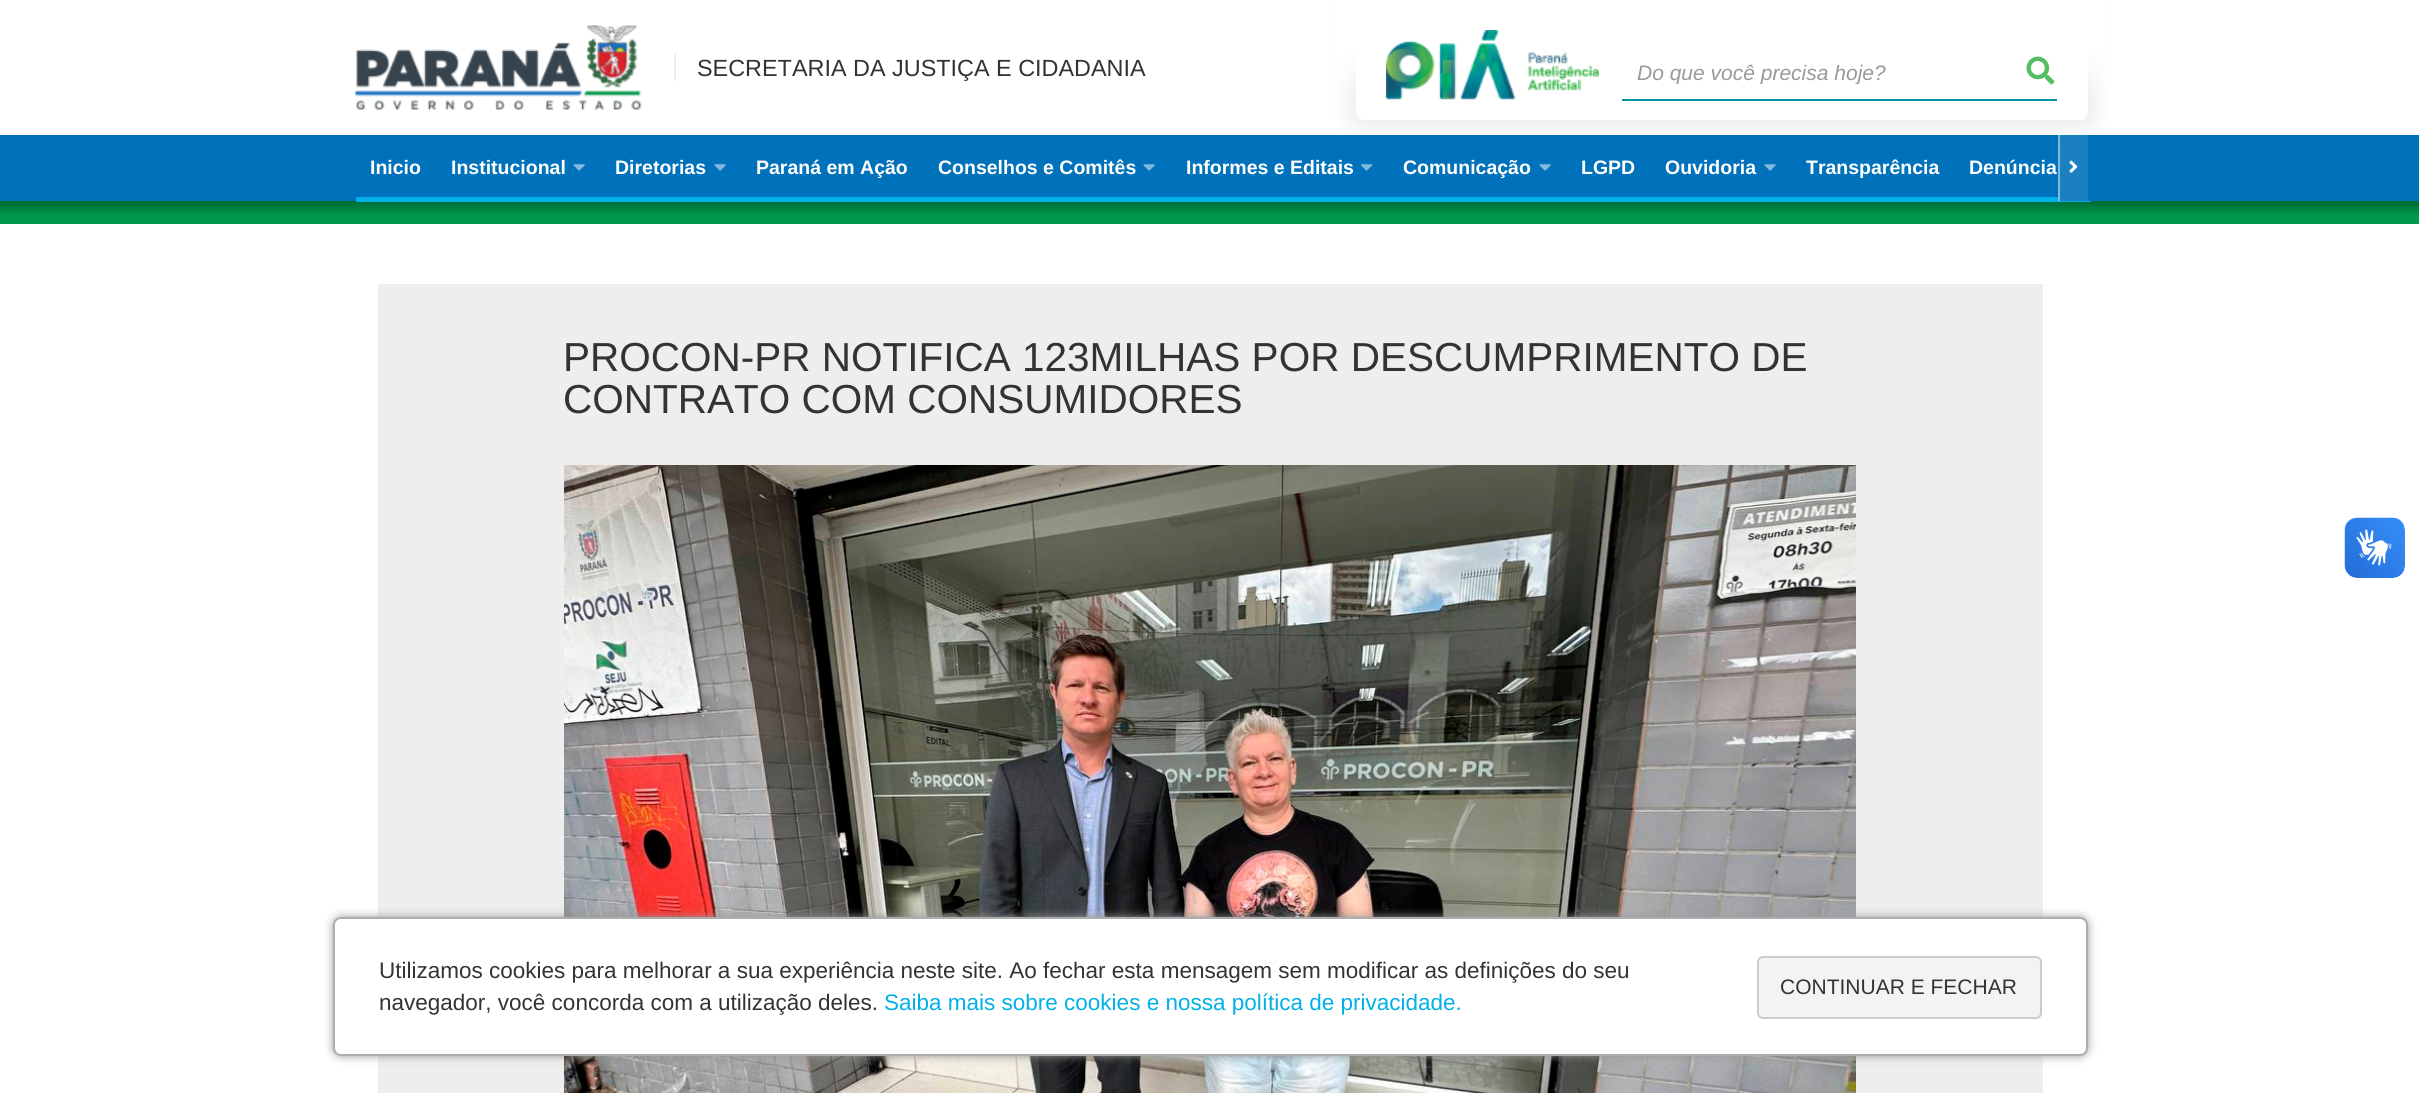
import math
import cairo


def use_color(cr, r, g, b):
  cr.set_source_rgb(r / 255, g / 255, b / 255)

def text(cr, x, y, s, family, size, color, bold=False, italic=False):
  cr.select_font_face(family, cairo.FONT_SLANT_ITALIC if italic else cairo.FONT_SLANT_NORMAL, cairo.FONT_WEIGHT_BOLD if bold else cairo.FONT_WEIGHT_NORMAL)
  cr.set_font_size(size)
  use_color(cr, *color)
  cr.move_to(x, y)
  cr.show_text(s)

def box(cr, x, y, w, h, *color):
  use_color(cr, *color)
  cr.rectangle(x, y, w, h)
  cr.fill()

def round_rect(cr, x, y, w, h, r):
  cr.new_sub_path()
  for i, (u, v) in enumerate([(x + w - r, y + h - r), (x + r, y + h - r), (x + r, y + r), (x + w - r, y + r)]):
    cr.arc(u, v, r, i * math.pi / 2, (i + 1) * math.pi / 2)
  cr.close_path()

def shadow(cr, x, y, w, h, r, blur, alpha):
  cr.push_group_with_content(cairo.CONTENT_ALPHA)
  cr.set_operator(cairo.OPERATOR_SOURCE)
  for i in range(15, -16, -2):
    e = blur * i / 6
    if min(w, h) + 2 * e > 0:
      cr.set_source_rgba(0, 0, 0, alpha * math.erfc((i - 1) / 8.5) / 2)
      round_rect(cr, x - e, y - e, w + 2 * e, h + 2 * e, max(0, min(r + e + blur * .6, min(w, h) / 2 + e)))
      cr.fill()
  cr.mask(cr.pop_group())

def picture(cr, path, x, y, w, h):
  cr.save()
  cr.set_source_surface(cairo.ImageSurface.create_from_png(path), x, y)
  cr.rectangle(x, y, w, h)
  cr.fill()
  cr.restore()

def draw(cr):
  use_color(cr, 0, 152, 75)
  cr.paint()
  box(cr, 0, 0, 2419, 135, 255, 255, 255)
  picture(cr, "img_01.png", 355, 25, 287, 85)
  box(cr, 674, 54, 2, 27, 238, 238, 238)
  box(cr, 0, 135, 2058, 66, 0, 114, 187)
  gradient = cairo.LinearGradient(1210, 201, 1210, 216)
  gradient.add_color_stop_rgba(0, 0, 0.416, 0.208, 1)
  gradient.add_color_stop_rgba(1, 0, 0.596, 0.294, 1)
  cr.set_source(gradient)
  cr.rectangle(0, 201, 2419, 14)
  cr.fill()
  box(cr, 356, 197, 1735, 5, 0, 176, 230)
  box(cr, 2088, 135, 331, 66, 0, 114, 187)
  box(cr, 2058, 135, 2, 66, 128, 185, 221)
  box(cr, 2060, 135, 28, 66, 26, 128, 194)
  picture(cr, "img_06.png", 2069, 160, 9, 13)
  cr.save()
  cr.set_fill_rule(cairo.FILL_RULE_EVEN_ODD)
  cr.new_path()
  cr.move_to(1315, 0)
  cr.line_to(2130, 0)
  cr.line_to(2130, 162)
  cr.line_to(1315, 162)
  cr.close_path()
  cr.move_to(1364, 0)
  cr.line_to(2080, 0)
  cr.curve_to(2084.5, 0, 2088, 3.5, 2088, 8)
  cr.line_to(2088, 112)
  cr.curve_to(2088, 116.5, 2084.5, 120, 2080, 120)
  cr.line_to(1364, 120)
  cr.curve_to(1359.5, 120, 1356, 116.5, 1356, 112)
  cr.line_to(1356, 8)
  cr.curve_to(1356, 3.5, 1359.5, 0, 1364, 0)
  cr.close_path()
  cr.clip()
  use_color(cr, 0, 0, 0)
  shadow(cr, 1349, -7, 747, 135, 15, 11, 0.08)
  cr.restore()
  gradient = cairo.LinearGradient(1736, -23, 1736, 98)
  gradient.add_color_stop_rgba(0, 1, 1, 1, 1)
  gradient.add_color_stop_rgba(0.6, 1, 1, 1, 1)
  gradient.add_color_stop_rgba(1, 1, 1, 1, 0)
  cr.set_source(gradient)
  cr.rectangle(1336, 0, 773, 90)
  cr.fill()
  picture(cr, "img_02.png", 1386, 30, 213, 70)
  box(cr, 1622, 99, 435, 2, 1, 145, 154)
  picture(cr, "img_03.png", 2026, 56, 29, 29)
  picture(cr, "img_04.png", 573, 164, 12, 7)
  picture(cr, "img_04.png", 714, 164, 12, 7)
  picture(cr, "img_04.png", 1143, 164, 12, 7)
  picture(cr, "img_05.png", 1361, 164, 12, 7)
  picture(cr, "img_04.png", 1539, 164, 12, 7)
  picture(cr, "img_04.png", 1764, 164, 12, 7)
  box(cr, 0, 224, 2419, 869, 255, 255, 255)
  box(cr, 378, 284, 1665, 809, 238, 238, 238)
  picture(cr, "img_07.png", 564, 465, 1292, 628)
  picture(cr, "img_08.png", 2344, 517, 61, 61)
  picture(cr, "img_09.png", 2345, 518, 60, 60)
  use_color(cr, 153, 153, 153)
  shadow(cr, 333, 917, 1755, 139, 8, 4.5, 1)
  use_color(cr, 255, 255, 255)
  round_rect(cr, 334, 918, 1753, 137, 7)
  cr.fill_preserve()
  use_color(cr, 173, 173, 173)
  cr.stroke()
  use_color(cr, 243, 243, 243)
  round_rect(cr, 1758, 957, 283, 61, 5)
  cr.fill_preserve()
  use_color(cr, 204, 204, 204)
  cr.stroke()
  text(cr, 697, 76, "SECRETARIA DA JUSTIÇA E CIDADANIA", "Liberation Sans", 23.4, (51, 51, 51))
  cr.save()
  cr.rectangle(1637, 60, 345, 24)
  cr.clip()
  text(cr, 1637, 80, "Do que você precisa hoje?", "Liberation Sans", 21, (153, 153, 153), italic=True)
  cr.restore()
  text(cr, 370, 174, "Inicio", "Liberation Sans", 19.5, (255, 255, 255), bold=True)
  text(cr, 451, 174, "Institucional", "Liberation Sans", 19.5, (255, 255, 255), bold=True)
  text(cr, 615, 174, "Diretorias", "Liberation Sans", 19.5, (255, 255, 255), bold=True)
  text(cr, 756, 174, "Paraná em Ação", "Liberation Sans", 19.5, (255, 255, 255), bold=True)
  text(cr, 938, 174, "Conselhos e Comitês", "Liberation Sans", 19.5, (255, 255, 255), bold=True)
  text(cr, 1186, 174, "Informes e Editais", "Liberation Sans", 19.5, (255, 255, 255), bold=True)
  text(cr, 1403, 174, "Comunicação", "Liberation Sans", 19.5, (255, 255, 255), bold=True)
  text(cr, 1581, 174, "LGPD", "Liberation Sans", 19.5, (255, 255, 255), bold=True)
  text(cr, 1665, 174, "Ouvidoria", "Liberation Sans", 19.5, (255, 255, 255), bold=True)
  text(cr, 1806, 174, "Transparência", "Liberation Sans", 19.5, (255, 255, 255), bold=True)
  text(cr, 1969, 174, "Denúncia", "Liberation Sans", 19.5, (255, 255, 255), bold=True)
  text(cr, 563, 371, "PROCON-PR NOTIFICA 123MILHAS POR DESCUMPRIMENTO DE", "Liberation Sans", 40.5, (51, 51, 51))
  text(cr, 563, 413, "CONTRATO COM CONSUMIDORES", "Liberation Sans", 40.5, (51, 51, 51))
  text(cr, 379, 978, "Utilizamos cookies para melhorar a sua experiência neste site. Ao fechar esta mensagem sem modificar as definições do seu", "Liberation Sans", 22.5, (51, 51, 51))
  text(cr, 379, 1010, "navegador, você concorda com a utilização deles.", "Liberation Sans", 22.5, (51, 51, 51))
  text(cr, 884, 1010, "Saiba mais sobre cookies e nossa política de privacidade.", "Liberation Sans", 22.5, (0, 176, 230))
  text(cr, 1780, 994, "CONTINUAR E FECHAR", "Liberation Sans", 21, (51, 51, 51))


surface = cairo.ImageSurface(cairo.FORMAT_RGB24, 2419, 1093)
cr = cairo.Context(surface)
options = cairo.FontOptions()
options.set_hint_metrics(cairo.HINT_METRICS_OFF)
options.set_hint_style(cairo.HINT_STYLE_NONE)
cr.set_font_options(options)
cr.set_miter_limit(4)
draw(cr)
surface.write_to_png("out.png")
